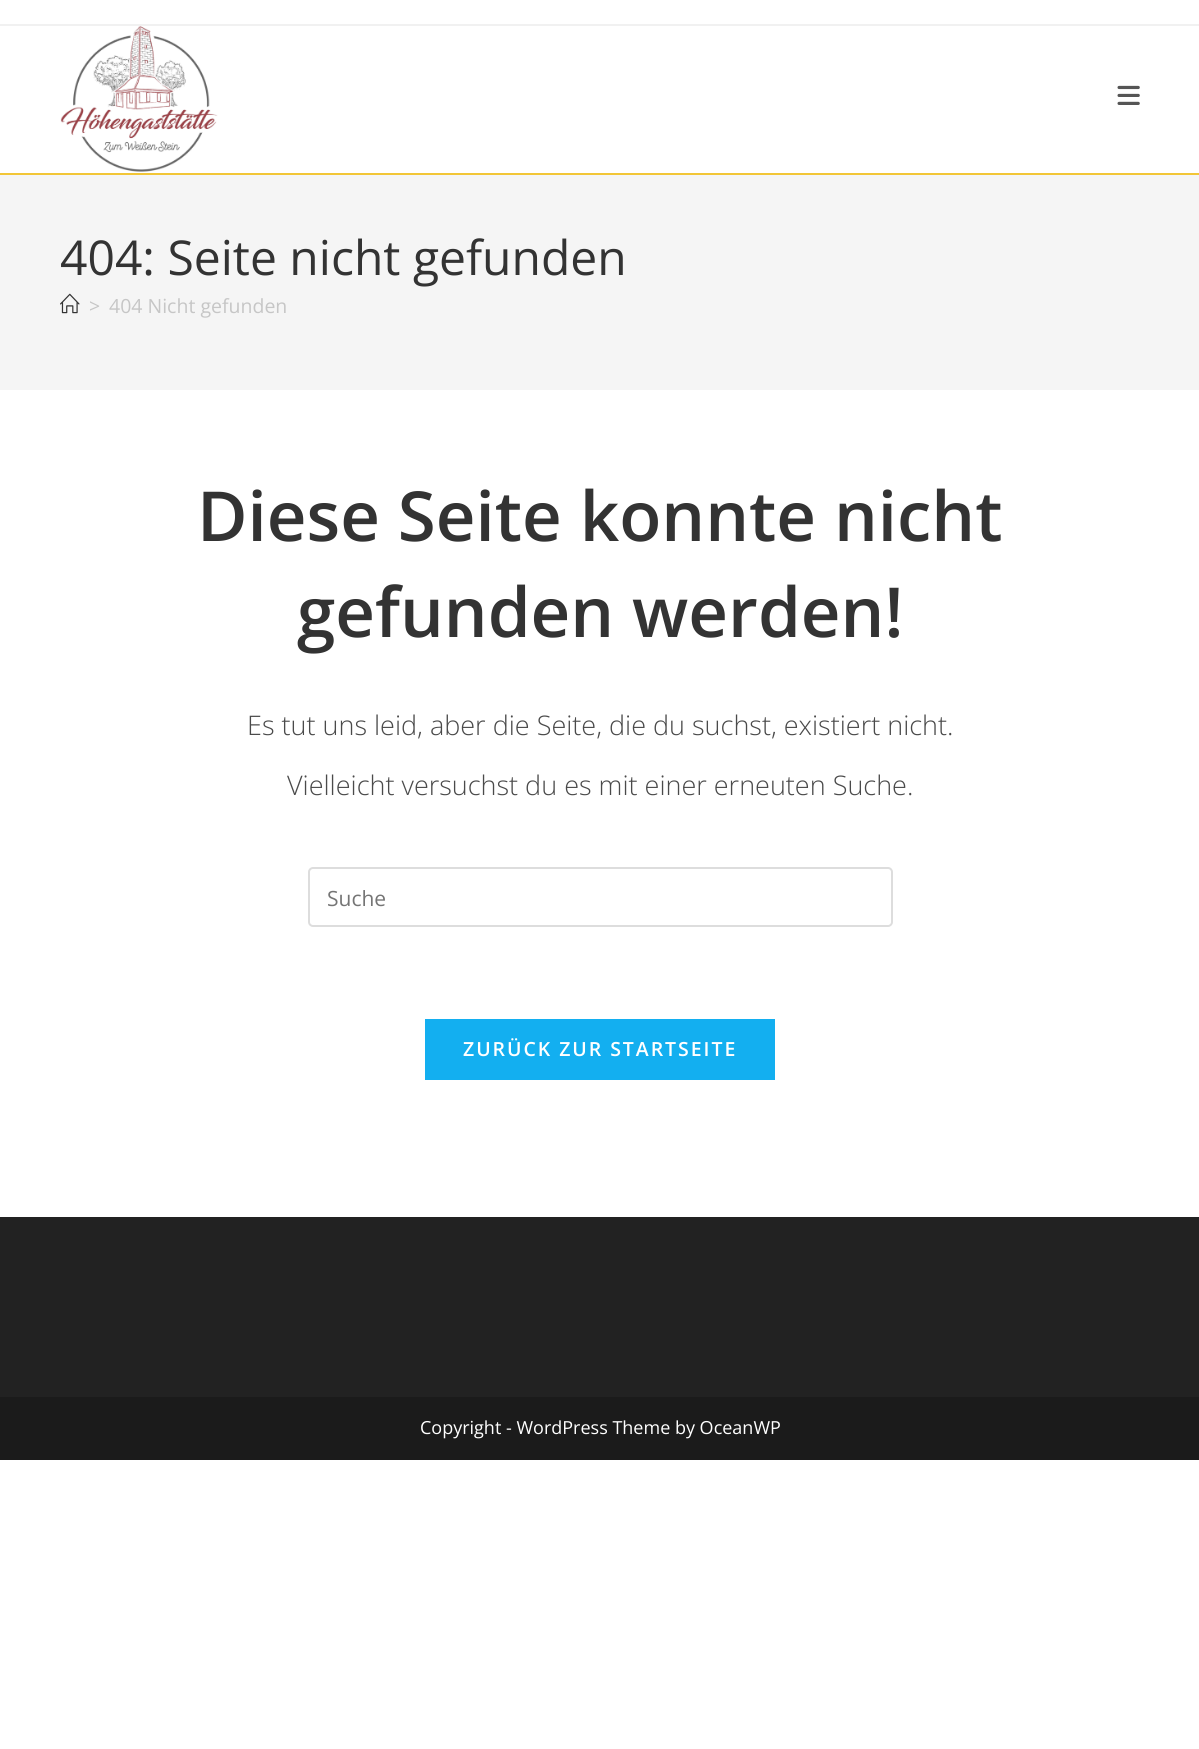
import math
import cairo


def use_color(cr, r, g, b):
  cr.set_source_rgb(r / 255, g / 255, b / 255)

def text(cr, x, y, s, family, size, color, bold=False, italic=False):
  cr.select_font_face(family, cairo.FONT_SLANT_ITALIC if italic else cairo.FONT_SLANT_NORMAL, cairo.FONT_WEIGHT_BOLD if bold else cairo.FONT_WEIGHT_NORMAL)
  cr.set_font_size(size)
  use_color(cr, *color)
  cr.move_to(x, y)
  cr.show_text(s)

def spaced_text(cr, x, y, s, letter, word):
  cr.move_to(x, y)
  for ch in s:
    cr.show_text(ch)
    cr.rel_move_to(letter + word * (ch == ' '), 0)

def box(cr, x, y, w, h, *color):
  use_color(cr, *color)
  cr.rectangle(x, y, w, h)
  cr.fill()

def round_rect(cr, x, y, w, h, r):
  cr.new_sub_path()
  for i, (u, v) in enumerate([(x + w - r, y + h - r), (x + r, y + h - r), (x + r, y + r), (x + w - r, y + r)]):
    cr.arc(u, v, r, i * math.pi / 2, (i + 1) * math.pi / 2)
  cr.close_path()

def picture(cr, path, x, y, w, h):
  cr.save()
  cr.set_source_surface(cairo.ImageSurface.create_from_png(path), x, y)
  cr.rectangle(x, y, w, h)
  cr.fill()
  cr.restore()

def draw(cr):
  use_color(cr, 255, 255, 255)
  cr.paint()
  box(cr, 0, 24, 1199, 2, 241, 241, 241)
  box(cr, 0, 173, 1199, 2, 242, 198, 55)
  picture(cr, "img_01.png", 60, 26, 158, 146)
  picture(cr, "img_02.png", 1117, 85, 23, 20)
  box(cr, 0, 175, 1199, 215, 245, 245, 245)
  picture(cr, "img_03.png", 60, 293, 20, 21)
  round_rect(cr, 309, 868, 583, 58, 4)
  use_color(cr, 221, 221, 221)
  cr.stroke()
  box(cr, 425, 1019, 350, 61, 19, 175, 240)
  box(cr, 0, 1217, 1199, 180, 34, 34, 34)
  box(cr, 0, 1397, 1199, 63, 27, 27, 27)
  text(cr, 60, 275, "404: Seite nicht gefunden", "Open Sans", 48, (51, 51, 51))
  text(cr, 89, 313, ">", "Open Sans", 19.5, (198, 198, 198))
  text(cr, 109, 313, "404 Nicht gefunden", "Open Sans", 19.5, (198, 198, 198))
  text(cr, 197, 541, "Diese Seite konnte nicht", "Open Sans SemiBold", 69, (51, 51, 51))
  text(cr, 297, 637, "gefunden werden!", "Open Sans SemiBold", 69, (51, 51, 51))
  text(cr, 247, 735, "Es tut uns leid, aber die Seite, die du suchst, existiert nicht.", "Open Sans Light", 27, (74, 74, 74))
  text(cr, 287, 795, "Vielleicht versuchst du es mit einer erneuten Suche.", "Open Sans Light", 27, (74, 74, 74))
  text(cr, 327, 906, "Suche", "Open Sans", 21, (117, 117, 117))
  cr.select_font_face("Open Sans SemiBold")
  cr.set_font_size(19.5)
  use_color(cr, 255, 255, 255)
  spaced_text(cr, 463, 1056, "ZURÜCK ZUR STARTSEITE", 1.95, 0)
  text(cr, 420, 1434, "Copyright - WordPress Theme by OceanWP", "Open Sans", 18, (255, 255, 255))


surface = cairo.ImageSurface(cairo.FORMAT_RGB24, 1199, 1749)
cr = cairo.Context(surface)
options = cairo.FontOptions()
options.set_hint_metrics(cairo.HINT_METRICS_OFF)
options.set_hint_style(cairo.HINT_STYLE_NONE)
cr.set_font_options(options)
cr.set_miter_limit(4)
draw(cr)
surface.write_to_png("out.png")
